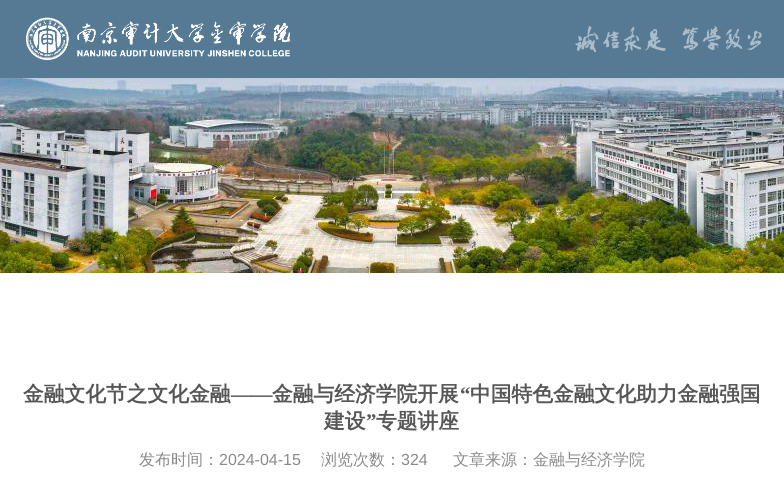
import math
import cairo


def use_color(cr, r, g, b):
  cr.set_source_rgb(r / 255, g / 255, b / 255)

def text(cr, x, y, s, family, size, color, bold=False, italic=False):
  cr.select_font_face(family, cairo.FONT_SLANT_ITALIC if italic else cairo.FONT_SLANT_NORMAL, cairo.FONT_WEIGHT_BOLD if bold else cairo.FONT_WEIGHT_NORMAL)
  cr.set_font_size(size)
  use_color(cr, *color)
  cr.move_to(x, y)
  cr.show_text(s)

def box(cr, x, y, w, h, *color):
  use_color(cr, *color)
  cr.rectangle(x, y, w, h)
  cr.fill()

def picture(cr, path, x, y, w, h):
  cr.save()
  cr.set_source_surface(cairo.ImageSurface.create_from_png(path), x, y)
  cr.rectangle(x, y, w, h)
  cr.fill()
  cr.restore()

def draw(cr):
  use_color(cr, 255, 255, 255)
  cr.paint()
  box(cr, 0, 0, 784, 78, 86, 122, 148)
  picture(cr, "img_01.png", 26, 17, 264, 44)
  picture(cr, "img_02.png", 575, 25, 187, 27)
  picture(cr, "img_03.png", 0, 78, 784, 195)
  text(cr, 23, 401, "金融文化节之文化金融", "WenQuanYi Zen Hei", 20.75, (87, 86, 86), bold=True)
  text(cr, 460, 401, "“", "Liberation Serif", 20.75, (87, 86, 86), bold=True)
  text(cr, 470, 401, "中国特色金融文化助力金融强国", "WenQuanYi Zen Hei", 20.75, (87, 86, 86), bold=True)
  text(cr, 231, 401, "——", "Liberation Serif", 20.75, (87, 86, 86), bold=True)
  text(cr, 272, 401, "金融与经济学院开展", "WenQuanYi Zen Hei", 20.75, (87, 86, 86), bold=True)
  text(cr, 324, 428, "建设", "WenQuanYi Zen Hei", 20.75, (87, 86, 86), bold=True)
  text(cr, 366, 428, "”", "Liberation Serif", 20.75, (87, 86, 86), bold=True)
  text(cr, 376, 428, "专题讲座", "WenQuanYi Zen Hei", 20.75, (87, 86, 86), bold=True)
  text(cr, 139, 465, "发布时间：", "WenQuanYi Zen Hei Medium", 16, (138, 138, 138))
  text(cr, 219, 465, "2024-04-15", "Liberation Sans", 16, (138, 138, 138))
  text(cr, 321, 465, "浏览次数：", "WenQuanYi Zen Hei Medium", 16, (138, 138, 138))
  text(cr, 401, 465, "324", "Liberation Sans", 16, (138, 138, 138))
  text(cr, 453, 465, "文章来源：金融与经济学院", "WenQuanYi Zen Hei Medium", 16, (138, 138, 138))


surface = cairo.ImageSurface(cairo.FORMAT_RGB24, 784, 477)
cr = cairo.Context(surface)
options = cairo.FontOptions()
options.set_hint_metrics(cairo.HINT_METRICS_OFF)
options.set_hint_style(cairo.HINT_STYLE_NONE)
cr.set_font_options(options)
cr.set_miter_limit(4)
draw(cr)
surface.write_to_png("out.png")
